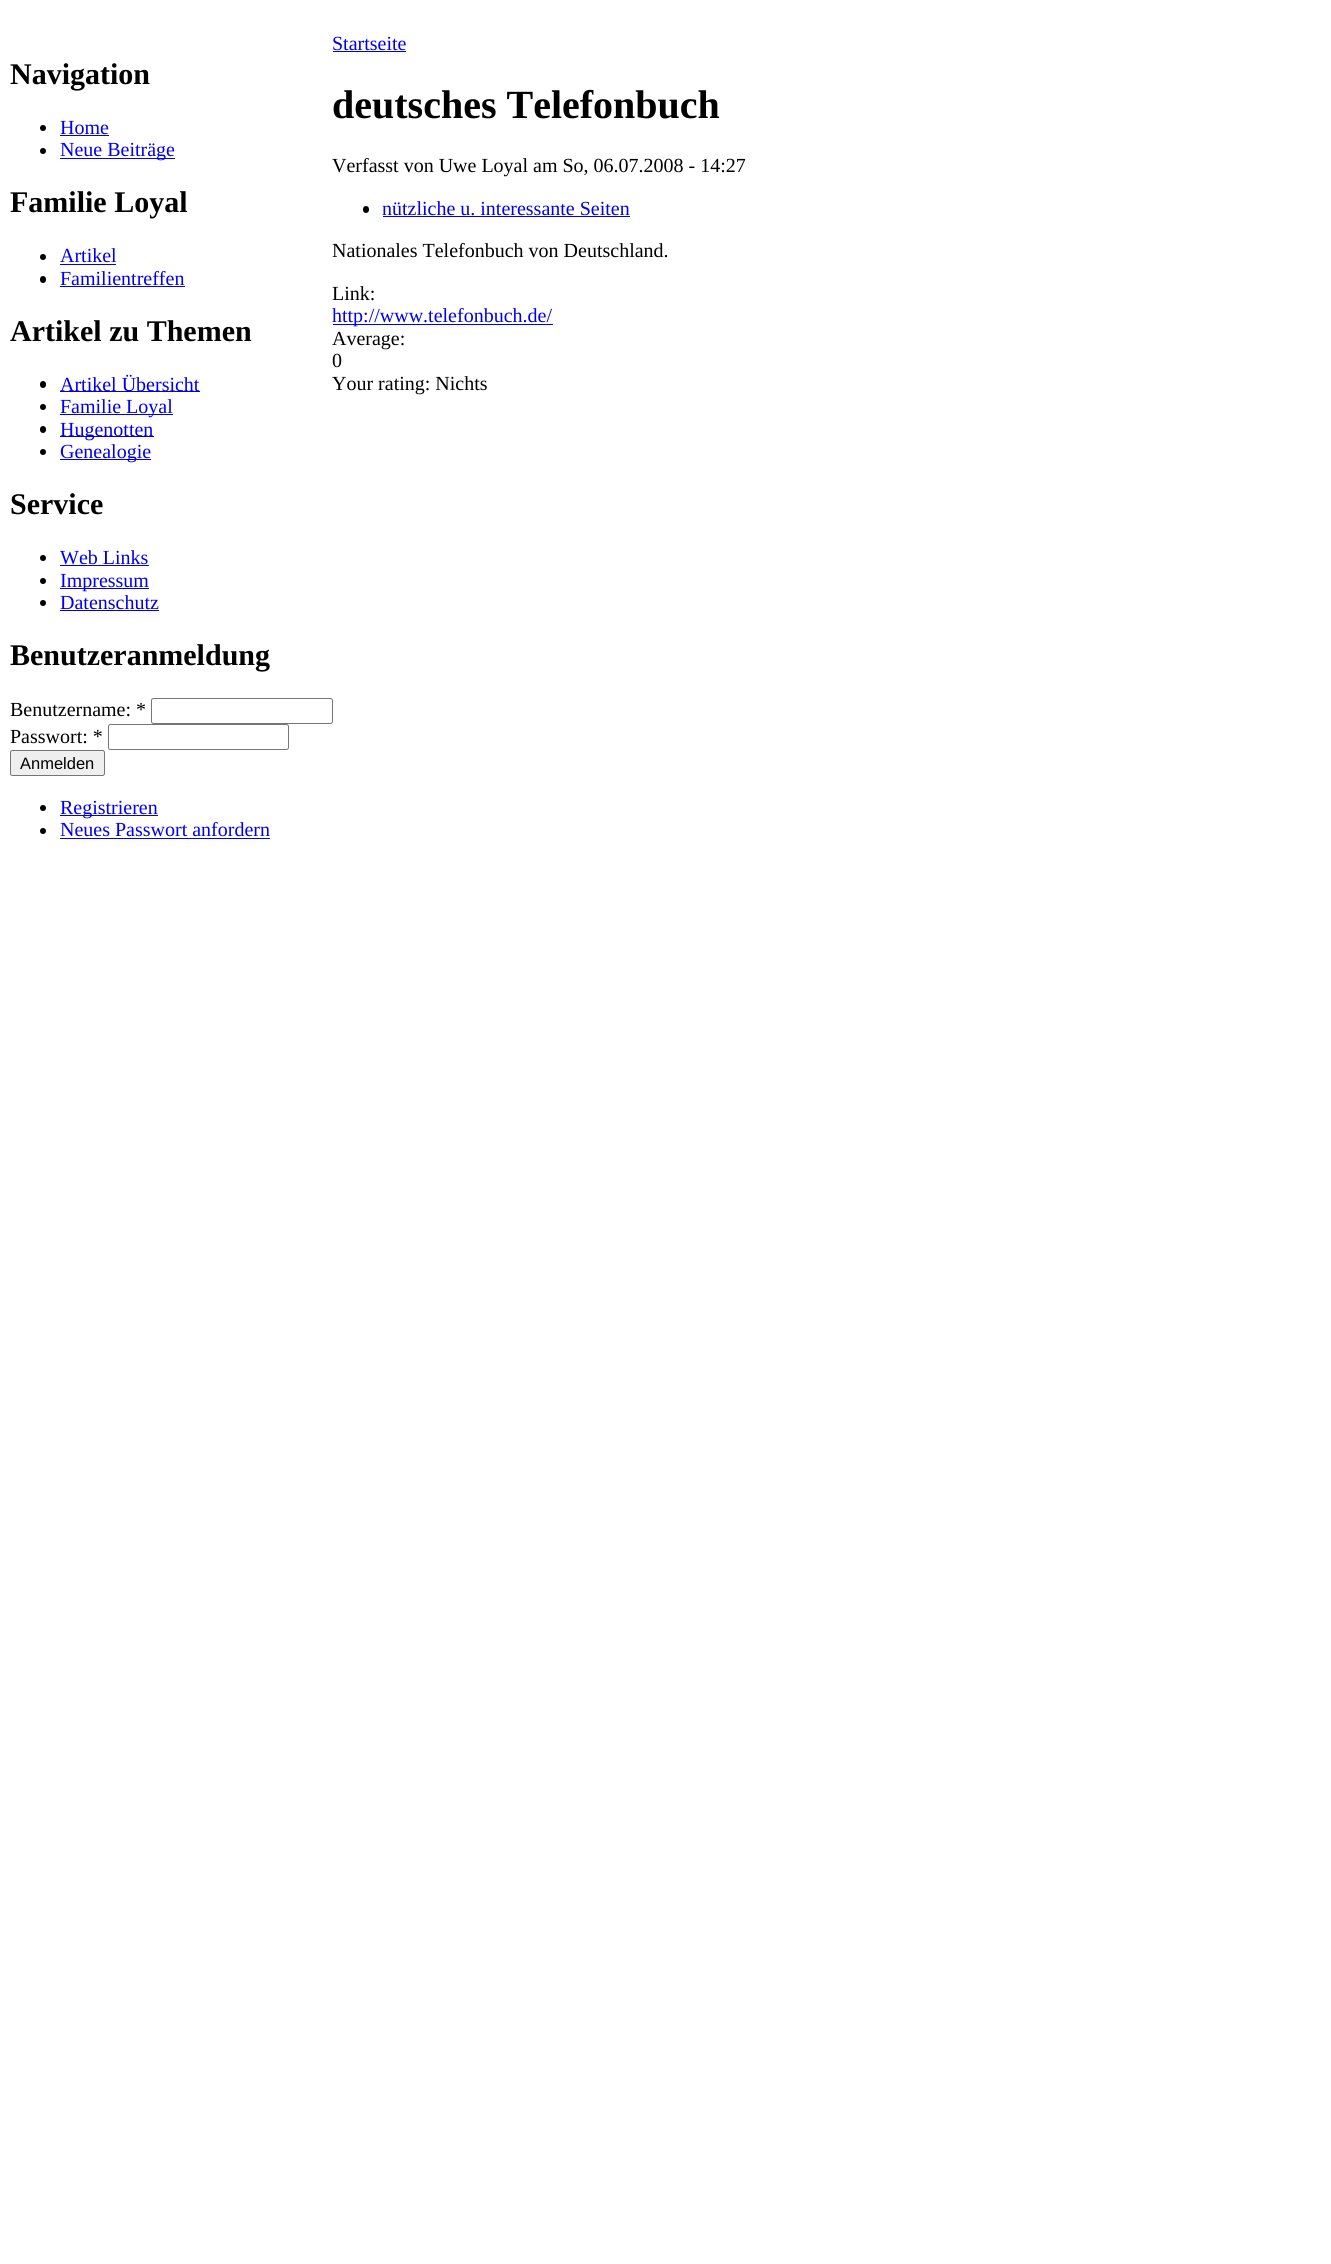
import math
import cairo


def use_color(cr, r, g, b):
  cr.set_source_rgb(r / 255, g / 255, b / 255)

def text(cr, x, y, s, family, size, color, bold=False, italic=False):
  cr.select_font_face(family, cairo.FONT_SLANT_ITALIC if italic else cairo.FONT_SLANT_NORMAL, cairo.FONT_WEIGHT_BOLD if bold else cairo.FONT_WEIGHT_NORMAL)
  cr.set_font_size(size)
  use_color(cr, *color)
  cr.move_to(x, y)
  cr.show_text(s)

def box(cr, x, y, w, h, *color):
  use_color(cr, *color)
  cr.rectangle(x, y, w, h)
  cr.fill()

def round_rect(cr, x, y, w, h, r):
  cr.new_sub_path()
  for i, (u, v) in enumerate([(x + w - r, y + h - r), (x + r, y + h - r), (x + r, y + r), (x + w - r, y + r)]):
    cr.arc(u, v, r, i * math.pi / 2, (i + 1) * math.pi / 2)
  cr.close_path()

def draw(cr):
  use_color(cr, 255, 255, 255)
  cr.paint()
  use_color(cr, 0, 0, 0)
  cr.arc(43, 128, 3, 0, 2 * math.pi)
  cr.fill()
  box(cr, 60, 135, 49, 1, 0, 0, 238)
  use_color(cr, 0, 0, 0)
  cr.arc(43, 151, 3, 0, 2 * math.pi)
  cr.fill()
  box(cr, 60, 158, 115, 1, 0, 0, 238)
  use_color(cr, 0, 0, 0)
  cr.arc(43, 257, 3, 0, 2 * math.pi)
  cr.fill()
  box(cr, 60, 264, 56, 1, 0, 0, 238)
  use_color(cr, 0, 0, 0)
  round_rect(cr, 40, 276, 6, 7, 3)
  cr.fill()
  box(cr, 60, 286, 125, 1, 0, 0, 238)
  use_color(cr, 0, 0, 0)
  round_rect(cr, 40, 381, 6, 7, 3)
  cr.fill()
  box(cr, 60, 391, 140, 1, 0, 0, 238)
  use_color(cr, 0, 0, 0)
  cr.arc(43, 407, 3, 0, 2 * math.pi)
  cr.fill()
  box(cr, 60, 414, 113, 1, 0, 0, 238)
  use_color(cr, 0, 0, 0)
  round_rect(cr, 40, 426, 6, 7, 3)
  cr.fill()
  box(cr, 60, 436, 94, 1, 0, 0, 238)
  use_color(cr, 0, 0, 0)
  cr.arc(43, 452, 3, 0, 2 * math.pi)
  cr.fill()
  box(cr, 60, 459, 91, 1, 0, 0, 238)
  use_color(cr, 0, 0, 0)
  cr.arc(43, 558, 3, 0, 2 * math.pi)
  cr.fill()
  box(cr, 60, 565, 89, 1, 0, 0, 238)
  use_color(cr, 0, 0, 0)
  cr.arc(43, 581, 3, 0, 2 * math.pi)
  cr.fill()
  box(cr, 60, 588, 89, 1, 0, 0, 238)
  use_color(cr, 0, 0, 0)
  cr.arc(43, 603, 3, 0, 2 * math.pi)
  cr.fill()
  box(cr, 60, 610, 99, 1, 0, 0, 238)
  round_rect(cr, 151.5, 698.5, 181, 25, 2)
  use_color(cr, 118, 118, 118)
  cr.set_line_width(1)
  cr.stroke()
  round_rect(cr, 108.5, 724.5, 180, 25, 2)
  cr.stroke()
  use_color(cr, 239, 239, 239)
  round_rect(cr, 10.5, 750.5, 94, 25, 2)
  cr.fill_preserve()
  use_color(cr, 118, 118, 118)
  cr.stroke()
  use_color(cr, 0, 0, 0)
  cr.arc(43, 808, 3, 0, 2 * math.pi)
  cr.fill()
  box(cr, 60, 815, 98, 1, 0, 0, 238)
  use_color(cr, 0, 0, 0)
  cr.arc(43, 831, 3, 0, 2 * math.pi)
  cr.fill()
  box(cr, 60, 838, 210, 1, 0, 0, 238)
  box(cr, 333, 51, 73, 1, 0, 0, 238)
  use_color(cr, 0, 0, 0)
  round_rect(cr, 363, 206, 6, 7, 3)
  cr.fill()
  box(cr, 383, 216, 247, 1, 0, 0, 238)
  box(cr, 333, 324, 220, 1, 0, 0, 238)
  text(cr, 10, 84, "Navigation", "Liberation Serif", 30, (0, 0, 0), bold=True)
  text(cr, 60, 134, "Home", "Liberation Serif", 20, (0, 0, 238))
  text(cr, 60, 156, "Neue Beiträge", "Liberation Serif", 20, (0, 0, 238))
  text(cr, 10, 212, "Familie Loyal", "Liberation Serif", 30, (0, 0, 0), bold=True)
  text(cr, 60, 262, "Artikel", "Liberation Serif", 20, (0, 0, 238))
  text(cr, 60, 285, "Familientreffen", "Liberation Serif", 20, (0, 0, 238))
  text(cr, 10, 341, "Artikel zu Themen", "Liberation Serif", 30, (0, 0, 0), bold=True)
  text(cr, 60, 391, "Artikel Übersicht", "Liberation Serif", 20, (0, 0, 238))
  text(cr, 60, 413, "Familie Loyal", "Liberation Serif", 20, (0, 0, 238))
  text(cr, 60, 436, "Hugenotten", "Liberation Serif", 20, (0, 0, 238))
  text(cr, 60, 458, "Genealogie", "Liberation Serif", 20, (0, 0, 238))
  text(cr, 10, 514, "Service", "Liberation Serif", 30, (0, 0, 0), bold=True)
  text(cr, 60, 564, "Web Links", "Liberation Serif", 20, (0, 0, 238))
  text(cr, 60, 587, "Impressum", "Liberation Serif", 20, (0, 0, 238))
  text(cr, 60, 609, "Datenschutz", "Liberation Serif", 20, (0, 0, 238))
  text(cr, 10, 665, "Benutzeranmeldung", "Liberation Serif", 30, (0, 0, 0), bold=True)
  text(cr, 10, 716, "Benutzername: *", "Liberation Serif", 20, (0, 0, 0))
  text(cr, 10, 743, "Passwort: *", "Liberation Serif", 20, (0, 0, 0))
  text(cr, 20, 769, "Anmelden", "Liberation Sans", 16.5, (0, 0, 0))
  text(cr, 60, 814, "Registrieren", "Liberation Serif", 20, (0, 0, 238))
  text(cr, 60, 836, "Neues Passwort anfordern", "Liberation Serif", 20, (0, 0, 238))
  text(cr, 332, 50, "Startseite", "Liberation Serif", 20, (0, 0, 238))
  text(cr, 332, 118, "deutsches Telefonbuch", "Liberation Serif", 40, (0, 0, 0), bold=True)
  text(cr, 332, 172, "Verfasst von Uwe Loyal am So, 06.07.2008 - 14:27", "Liberation Serif", 20, (0, 0, 0))
  text(cr, 382, 215, "nützliche u. interessante Seiten", "Liberation Serif", 20, (0, 0, 238))
  text(cr, 332, 257, "Nationales Telefonbuch von Deutschland.", "Liberation Serif", 20, (0, 0, 0))
  text(cr, 332, 300, "Link:", "Liberation Serif", 20, (0, 0, 0))
  text(cr, 332, 322, "http://www.telefonbuch.de/", "Liberation Serif", 20, (0, 0, 238))
  text(cr, 332, 345, "Average:", "Liberation Serif", 20, (0, 0, 0))
  text(cr, 332, 367, "0", "Liberation Serif", 20, (0, 0, 0))
  text(cr, 332, 390, "Your rating: Nichts", "Liberation Serif", 20, (0, 0, 0))


surface = cairo.ImageSurface(cairo.FORMAT_RGB24, 1331, 2264)
cr = cairo.Context(surface)
options = cairo.FontOptions()
options.set_hint_metrics(cairo.HINT_METRICS_OFF)
options.set_hint_style(cairo.HINT_STYLE_NONE)
cr.set_font_options(options)
cr.set_miter_limit(4)
draw(cr)
surface.write_to_png("out.png")
